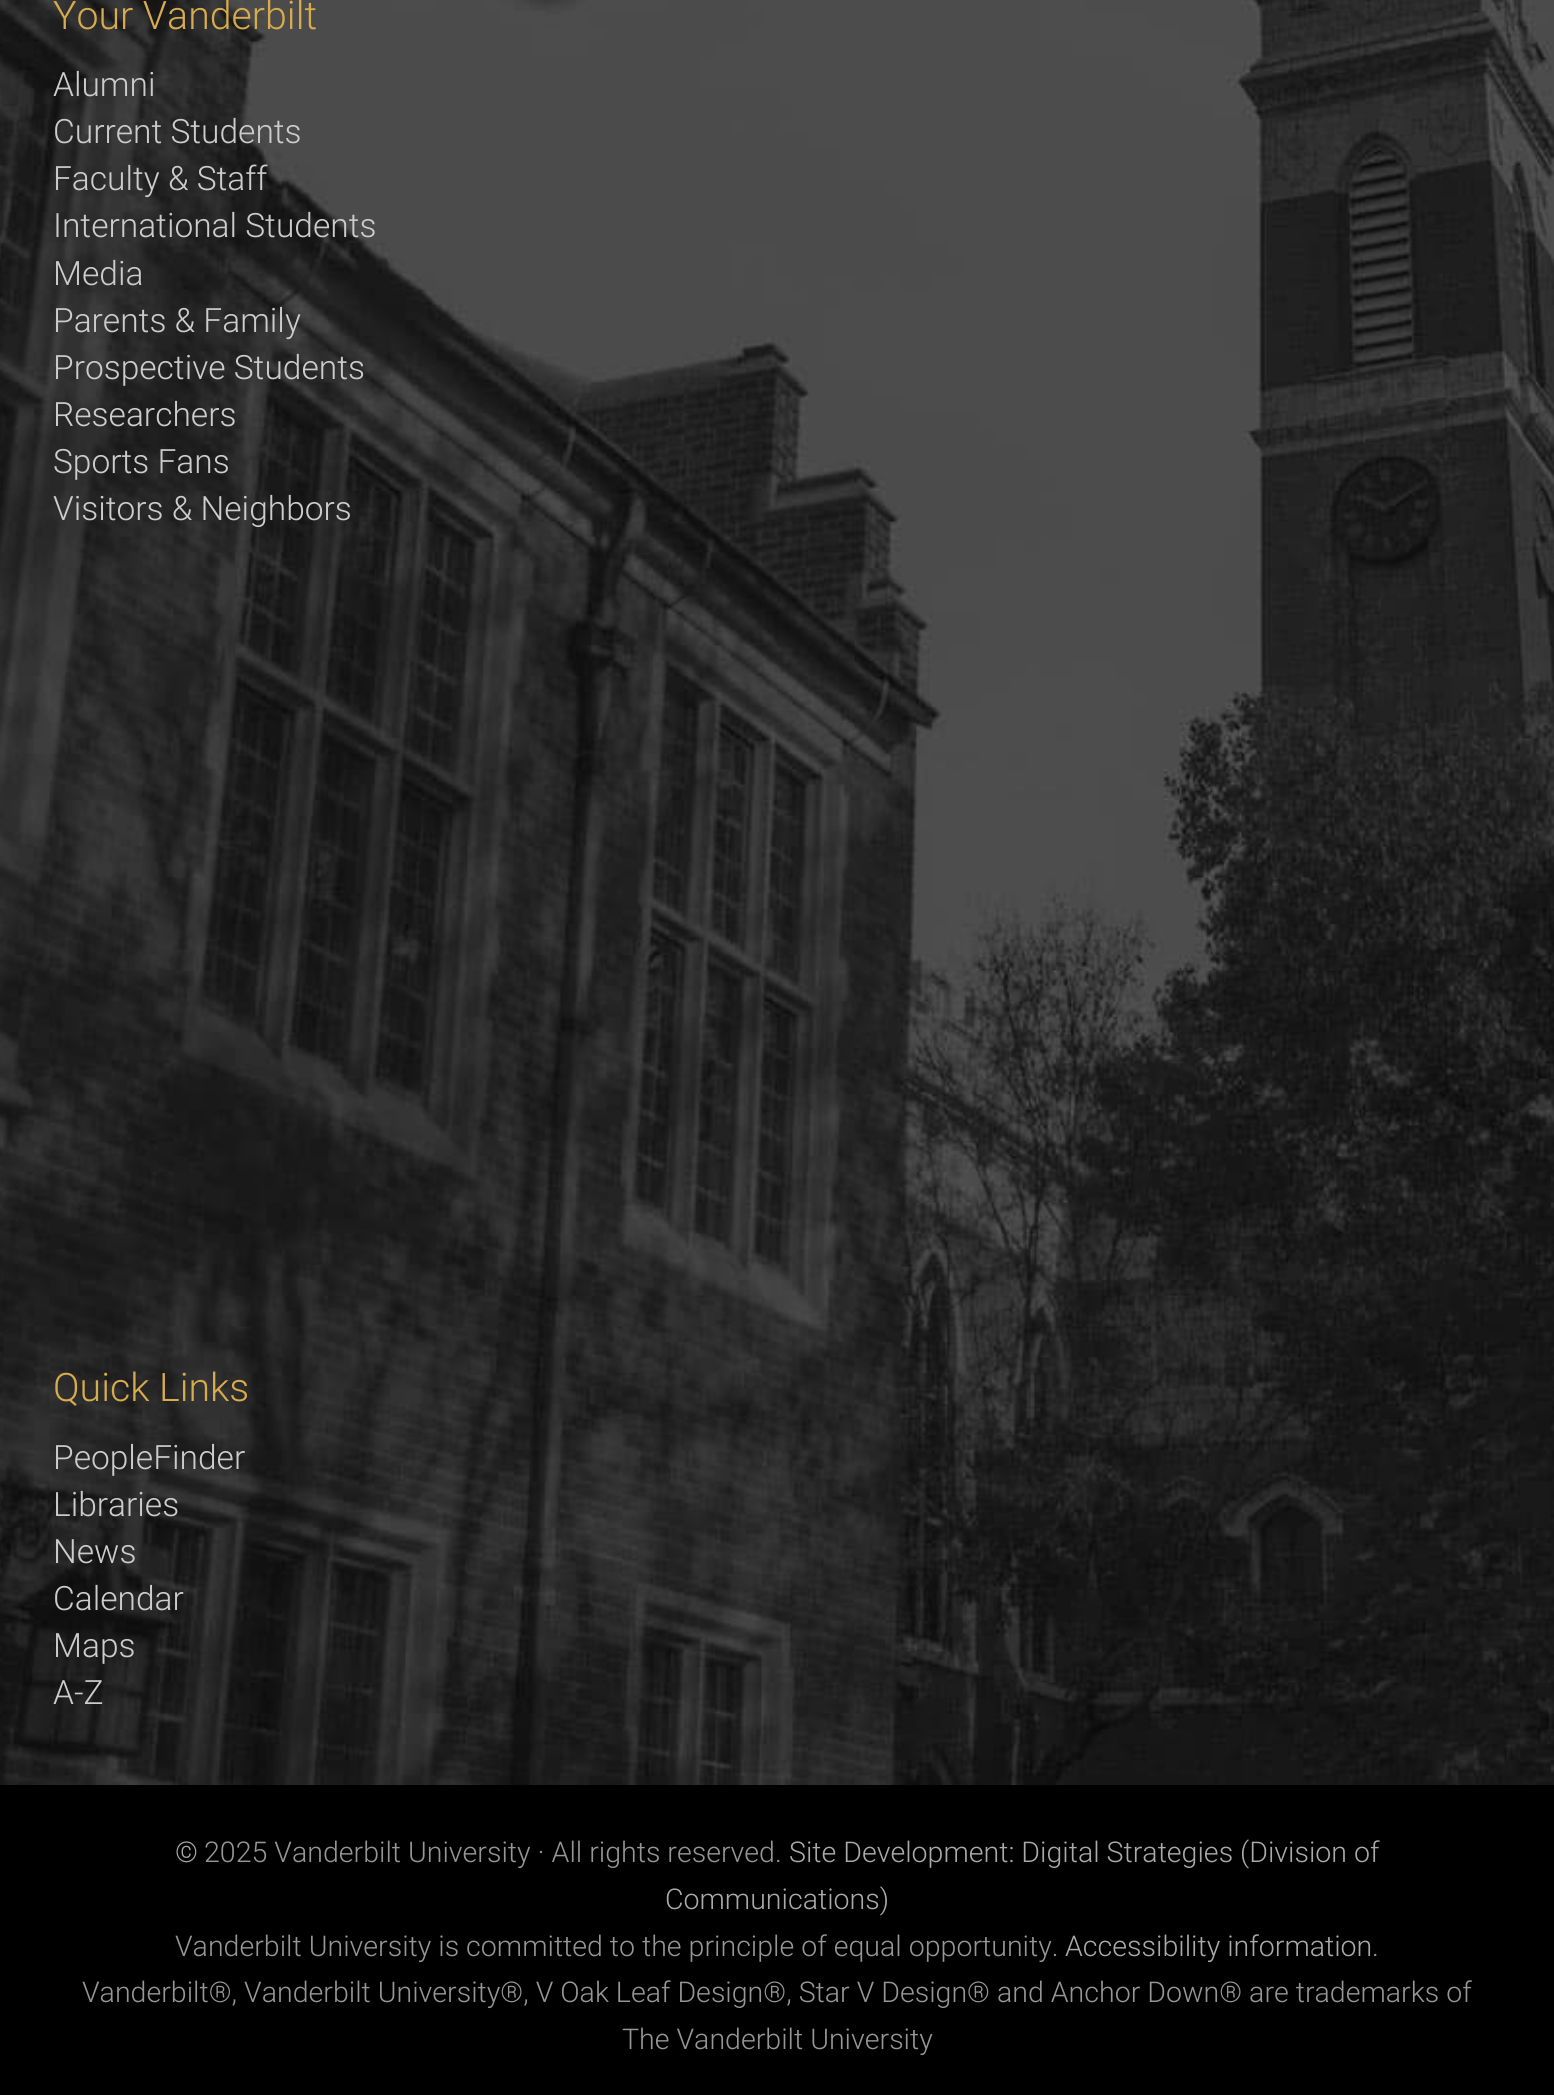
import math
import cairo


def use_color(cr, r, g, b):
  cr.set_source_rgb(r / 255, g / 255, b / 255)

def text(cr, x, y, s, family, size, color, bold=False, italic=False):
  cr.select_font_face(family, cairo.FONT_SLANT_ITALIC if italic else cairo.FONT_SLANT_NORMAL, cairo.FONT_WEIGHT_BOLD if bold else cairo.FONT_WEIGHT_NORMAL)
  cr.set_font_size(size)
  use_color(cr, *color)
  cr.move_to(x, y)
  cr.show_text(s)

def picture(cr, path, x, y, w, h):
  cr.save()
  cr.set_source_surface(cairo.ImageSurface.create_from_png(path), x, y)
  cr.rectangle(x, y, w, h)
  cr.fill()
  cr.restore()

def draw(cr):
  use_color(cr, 0, 0, 0)
  cr.paint()
  picture(cr, "img_01.png", 0, 0, 1554, 1785)
  text(cr, 53, 29, "Your Vanderbilt", "Roboto Light", 39.25, (216, 171, 76))
  text(cr, 53, 96, "Alumni", "Roboto Light", 33.5, (204, 204, 204))
  text(cr, 53, 143, "Current Students", "Roboto Light", 33.5, (204, 204, 204))
  text(cr, 53, 190, "Faculty & Staff", "Roboto Light", 33.5, (204, 204, 204))
  text(cr, 53, 237, "International Students", "Roboto Light", 33.5, (204, 204, 204))
  text(cr, 53, 285, "Media", "Roboto Light", 33.5, (204, 204, 204))
  text(cr, 53, 332, "Parents & Family", "Roboto Light", 33.5, (204, 204, 204))
  text(cr, 53, 379, "Prospective Students", "Roboto Light", 33.5, (204, 204, 204))
  text(cr, 53, 426, "Researchers", "Roboto Light", 33.5, (204, 204, 204))
  text(cr, 53, 473, "Sports Fans", "Roboto Light", 33.5, (204, 204, 204))
  text(cr, 53, 520, "Visitors & Neighbors", "Roboto Light", 33.5, (204, 204, 204))
  text(cr, 53, 1401, "Quick Links", "Roboto Light", 39.25, (216, 171, 76))
  text(cr, 53, 1469, "PeopleFinder", "Roboto Light", 33.5, (204, 204, 204))
  text(cr, 53, 1516, "Libraries", "Roboto Light", 33.5, (204, 204, 204))
  text(cr, 53, 1563, "News", "Roboto Light", 33.5, (204, 204, 204))
  text(cr, 53, 1610, "Calendar", "Roboto Light", 33.5, (204, 204, 204))
  text(cr, 53, 1657, "Maps", "Roboto Light", 33.5, (204, 204, 204))
  text(cr, 53, 1704, "A-Z", "Roboto Light", 33.5, (204, 204, 204))
  text(cr, 175, 1862, "©", "Roboto Light", 28.55, (170, 170, 170))
  text(cr, 204, 1862, "2025 Vanderbilt University · All rights reserved.", "Roboto Light", 28.55, (150, 150, 150))
  text(cr, 789, 1862, "Site Development: Digital Strategies (Division of", "Roboto Light", 28.55, (170, 170, 170))
  text(cr, 665, 1909, "Communications)", "Roboto Light", 28.55, (170, 170, 170))
  text(cr, 175, 1956, "Vanderbilt University is committed to the principle of equal opportunity.", "Roboto Light", 28.55, (150, 150, 150))
  text(cr, 1065, 1956, "Accessibility information", "Roboto Light", 28.55, (170, 170, 170))
  text(cr, 1372, 1956, ".", "Roboto Light", 28.55, (150, 150, 150))
  text(cr, 82, 2002, "Vanderbilt®, Vanderbilt University®, V Oak Leaf Design®, Star V Design® and Anchor Down® are trademarks of", "Roboto Light", 28.55, (150, 150, 150))
  text(cr, 622, 2049, "The Vanderbilt University", "Roboto Light", 28.55, (150, 150, 150))


surface = cairo.ImageSurface(cairo.FORMAT_RGB24, 1554, 2095)
cr = cairo.Context(surface)
options = cairo.FontOptions()
options.set_hint_metrics(cairo.HINT_METRICS_OFF)
options.set_hint_style(cairo.HINT_STYLE_NONE)
cr.set_font_options(options)
cr.set_miter_limit(4)
draw(cr)
surface.write_to_png("out.png")
